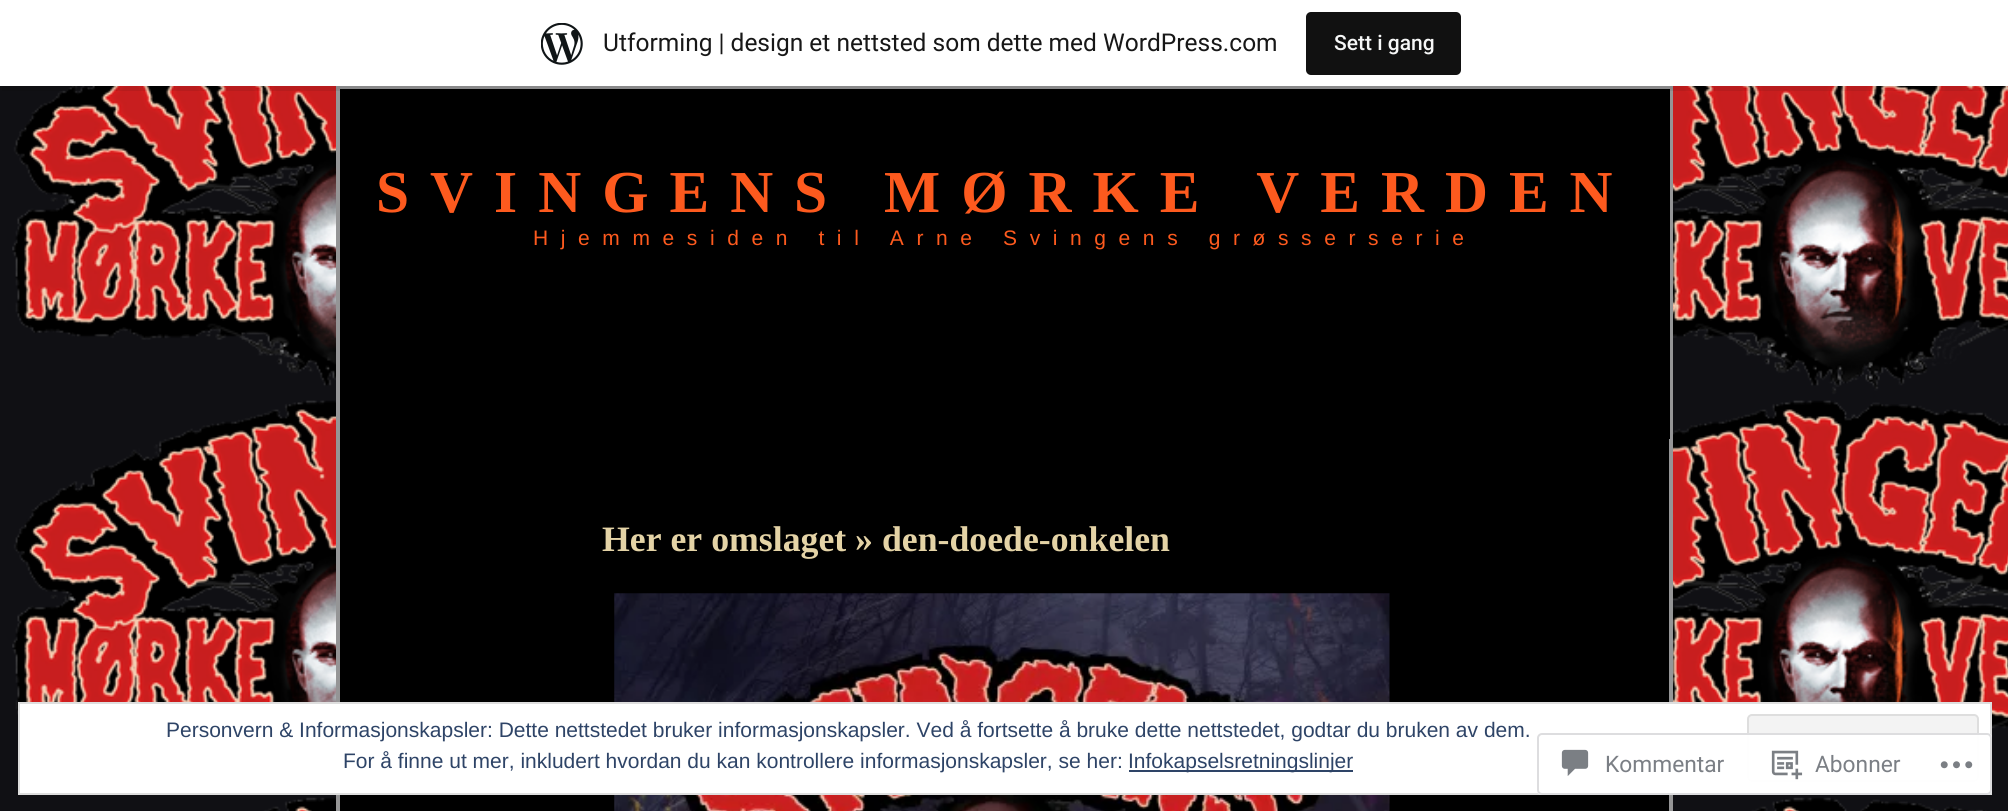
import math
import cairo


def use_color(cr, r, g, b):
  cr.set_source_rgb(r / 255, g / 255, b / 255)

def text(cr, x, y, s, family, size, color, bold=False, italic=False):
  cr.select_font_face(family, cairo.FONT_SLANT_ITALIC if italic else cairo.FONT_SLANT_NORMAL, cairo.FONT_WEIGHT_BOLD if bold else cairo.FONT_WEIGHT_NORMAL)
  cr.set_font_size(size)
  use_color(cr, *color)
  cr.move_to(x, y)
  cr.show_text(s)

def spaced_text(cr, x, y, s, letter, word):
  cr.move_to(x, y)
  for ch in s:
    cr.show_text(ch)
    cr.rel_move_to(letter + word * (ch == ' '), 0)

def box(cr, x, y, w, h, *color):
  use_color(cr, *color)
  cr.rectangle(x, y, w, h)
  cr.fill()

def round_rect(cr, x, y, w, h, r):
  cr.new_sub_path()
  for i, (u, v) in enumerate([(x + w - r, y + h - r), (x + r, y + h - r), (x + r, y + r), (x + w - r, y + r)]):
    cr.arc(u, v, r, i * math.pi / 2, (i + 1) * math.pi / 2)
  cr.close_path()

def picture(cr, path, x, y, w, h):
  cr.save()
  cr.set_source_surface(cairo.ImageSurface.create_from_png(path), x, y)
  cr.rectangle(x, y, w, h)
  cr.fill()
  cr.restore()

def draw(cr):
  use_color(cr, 16, 16, 20)
  cr.paint()
  picture(cr, "img_01.png", 12, 86, 1996, 725)
  box(cr, 340, 439, 1329, 372, 0, 0, 0)
  cr.rectangle(338, 88, 1333, 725)
  use_color(cr, 149, 149, 150)
  cr.set_line_width(4)
  cr.stroke()
  box(cr, 340, 89, 1330, 350, 0, 0, 0)
  cr.set_source_rgba(0, 0, 0, 0.08)
  cr.new_path()
  cr.move_to(2, 86)
  cr.line_to(2, 91)
  cr.line_to(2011, 91)
  cr.line_to(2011, 5)
  cr.line_to(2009, 5)
  cr.line_to(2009, 86)
  cr.close_path()
  cr.fill()
  box(cr, 0, 0, 2008, 86, 255, 255, 255)
  picture(cr, "img_02.png", 541, 23, 42, 42)
  use_color(cr, 17, 17, 17)
  round_rect(cr, 1306, 12, 155, 63, 5)
  cr.fill()
  picture(cr, "img_03.png", 614, 593, 776, 218)
  use_color(cr, 255, 255, 255)
  cr.rectangle(19, 703, 1972, 91)
  cr.fill_preserve()
  use_color(cr, 222, 222, 222)
  cr.set_line_width(2)
  cr.stroke()
  use_color(cr, 243, 243, 243)
  round_rect(cr, 1748, 715, 230, 66, 4)
  cr.fill_preserve()
  use_color(cr, 222, 222, 222)
  cr.stroke()
  box(cr, 1129, 770, 224, 2, 46, 68, 103)
  cr.set_source_rgba(1, 1, 1, 0.98)
  round_rect(cr, 1537, 733, 455, 62, 5)
  cr.fill()
  round_rect(cr, 1538, 734, 453, 60, 4)
  cr.set_source_rgba(0.863, 0.863, 0.871, 0.98)
  cr.stroke()
  picture(cr, "img_04.png", 1561, 749, 28, 27)
  picture(cr, "img_05.png", 1771, 750, 32, 30)
  picture(cr, "img_06.png", 1940, 761, 33, 8)
  text(cr, 603, 51, "Utforming | design et nettsted som dette med WordPress.com", "Roboto", 24.5, (23, 23, 23))
  text(cr, 1334, 50, "Sett i gang", "Roboto Medium", 21, (246, 247, 247))
  cr.select_font_face("Liberation Serif", cairo.FONT_SLANT_NORMAL, cairo.FONT_WEIGHT_BOLD)
  cr.set_font_size(59.5)
  use_color(cr, 253, 90, 30)
  spaced_text(cr, 376, 212, "SVINGENS MØRKE VERDEN", 21, 0)
  cr.select_font_face("Liberation Sans")
  cr.set_font_size(21)
  spaced_text(cr, 533, 245, "Hjemmesiden til Arne Svingens grøsserserie", 12.6, 0)
  text(cr, 602, 551, "Her er omslaget » den-doede-onkelen", "Liberation Serif", 35.75, (228, 211, 166), bold=True)
  text(cr, 166, 737, "Personvern & Informasjonskapsler: Dette nettstedet bruker informasjonskapsler. Ved å fortsette å bruke dette nettstedet, godtar du bruken av dem.", "Liberation Sans", 21, (46, 68, 103))
  text(cr, 343, 768, "For å finne ut mer, inkludert hvordan du kan kontrollere informasjonskapsler, se her:", "Liberation Sans", 21, (46, 68, 103))
  text(cr, 1128, 768, "Infokapselsretningslinjer", "Liberation Sans", 21, (46, 68, 103))
  text(cr, 1605, 772, "Kommentar", "Roboto", 22.75, (123, 127, 133))
  text(cr, 1815, 772, "Abonner", "Roboto", 22.75, (123, 127, 133))


surface = cairo.ImageSurface(cairo.FORMAT_RGB24, 2008, 811)
cr = cairo.Context(surface)
options = cairo.FontOptions()
options.set_hint_metrics(cairo.HINT_METRICS_OFF)
options.set_hint_style(cairo.HINT_STYLE_NONE)
cr.set_font_options(options)
cr.set_miter_limit(4)
draw(cr)
surface.write_to_png("out.png")
